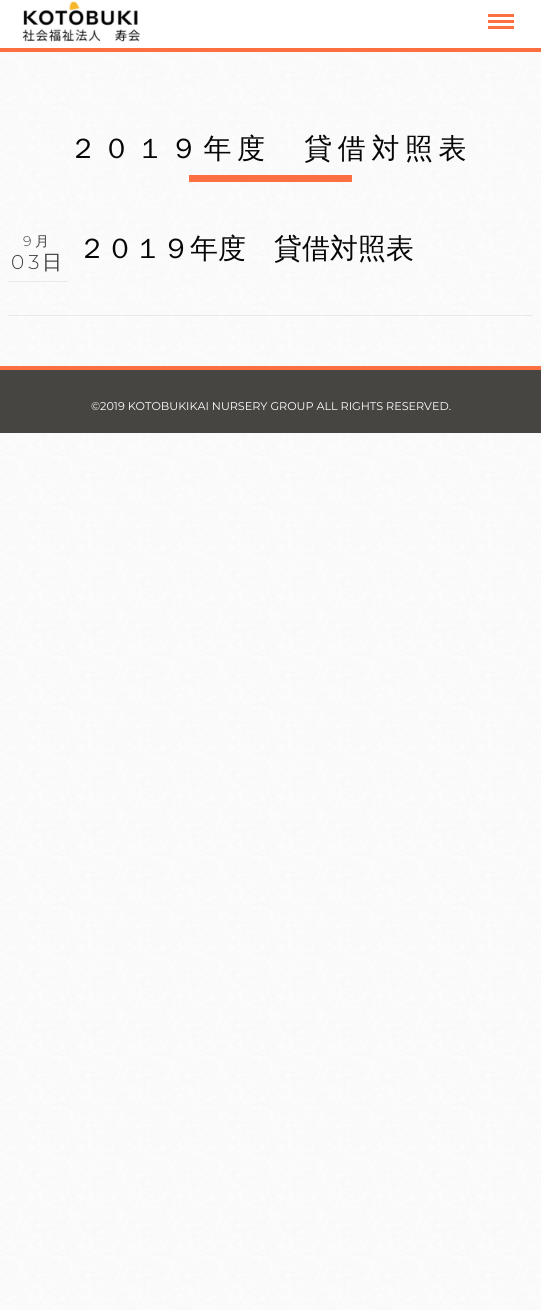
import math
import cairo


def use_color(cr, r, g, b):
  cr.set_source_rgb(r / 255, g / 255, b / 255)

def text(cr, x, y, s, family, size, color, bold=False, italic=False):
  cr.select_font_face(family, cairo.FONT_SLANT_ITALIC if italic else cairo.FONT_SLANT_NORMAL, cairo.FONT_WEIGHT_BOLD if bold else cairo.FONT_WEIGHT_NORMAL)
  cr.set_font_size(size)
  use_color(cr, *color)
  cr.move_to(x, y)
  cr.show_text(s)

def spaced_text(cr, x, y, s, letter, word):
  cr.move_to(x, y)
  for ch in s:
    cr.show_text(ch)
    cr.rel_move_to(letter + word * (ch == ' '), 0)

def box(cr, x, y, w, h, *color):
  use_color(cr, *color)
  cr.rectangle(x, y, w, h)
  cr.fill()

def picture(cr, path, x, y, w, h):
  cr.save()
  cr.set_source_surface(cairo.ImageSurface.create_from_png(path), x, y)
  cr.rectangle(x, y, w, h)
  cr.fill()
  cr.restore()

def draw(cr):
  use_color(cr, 255, 255, 255)
  cr.paint()
  picture(cr, "img_01.png", 0, 52, 541, 1258)
  picture(cr, "img_02.png", 22, 1, 118, 41)
  box(cr, 488, 14, 26, 3, 251, 111, 64)
  box(cr, 488, 20, 26, 3, 251, 111, 64)
  box(cr, 488, 26, 26, 3, 251, 111, 64)
  box(cr, 0, 48, 541, 4, 251, 111, 64)
  box(cr, 189, 175, 163, 7, 251, 111, 64)
  box(cr, 8, 315, 525, 1, 233, 233, 233)
  box(cr, 8, 281, 60, 1, 233, 233, 233)
  box(cr, 0, 370, 541, 63, 71, 69, 66)
  box(cr, 0, 366, 541, 4, 251, 111, 64)
  cr.select_font_face("WenQuanYi Zen Hei Medium")
  cr.set_font_size(28)
  use_color(cr, 6, 6, 6)
  spaced_text(cr, 69, 158, "２０１９年度　貸借対照表", 5.6, 0)
  cr.select_font_face("Montserrat Light")
  cr.set_font_size(14)
  use_color(cr, 66, 66, 66)
  spaced_text(cr, 23, 246, "9", 4, 0)
  cr.select_font_face("WenQuanYi Zen Hei Medium")
  spaced_text(cr, 35, 246, "月", 4, 0)
  cr.select_font_face("Montserrat Light")
  cr.set_font_size(20)
  spaced_text(cr, 11, 269, "03", 4, 0)
  cr.select_font_face("WenQuanYi Zen Hei Medium")
  spaced_text(cr, 42, 269, "日", 4, 0)
  text(cr, 78, 258, "２０１９年度　貸借対照表", "WenQuanYi Zen Hei Medium", 28, (6, 6, 6))
  text(cr, 91, 410, "©2019 KOTOBUKIKAI NURSERY GROUP ALL RIGHTS RESERVED.", "Montserrat", 11.2, (255, 255, 255))


surface = cairo.ImageSurface(cairo.FORMAT_RGB24, 541, 1310)
cr = cairo.Context(surface)
options = cairo.FontOptions()
options.set_hint_metrics(cairo.HINT_METRICS_OFF)
options.set_hint_style(cairo.HINT_STYLE_NONE)
cr.set_font_options(options)
cr.set_miter_limit(4)
draw(cr)
surface.write_to_png("out.png")
